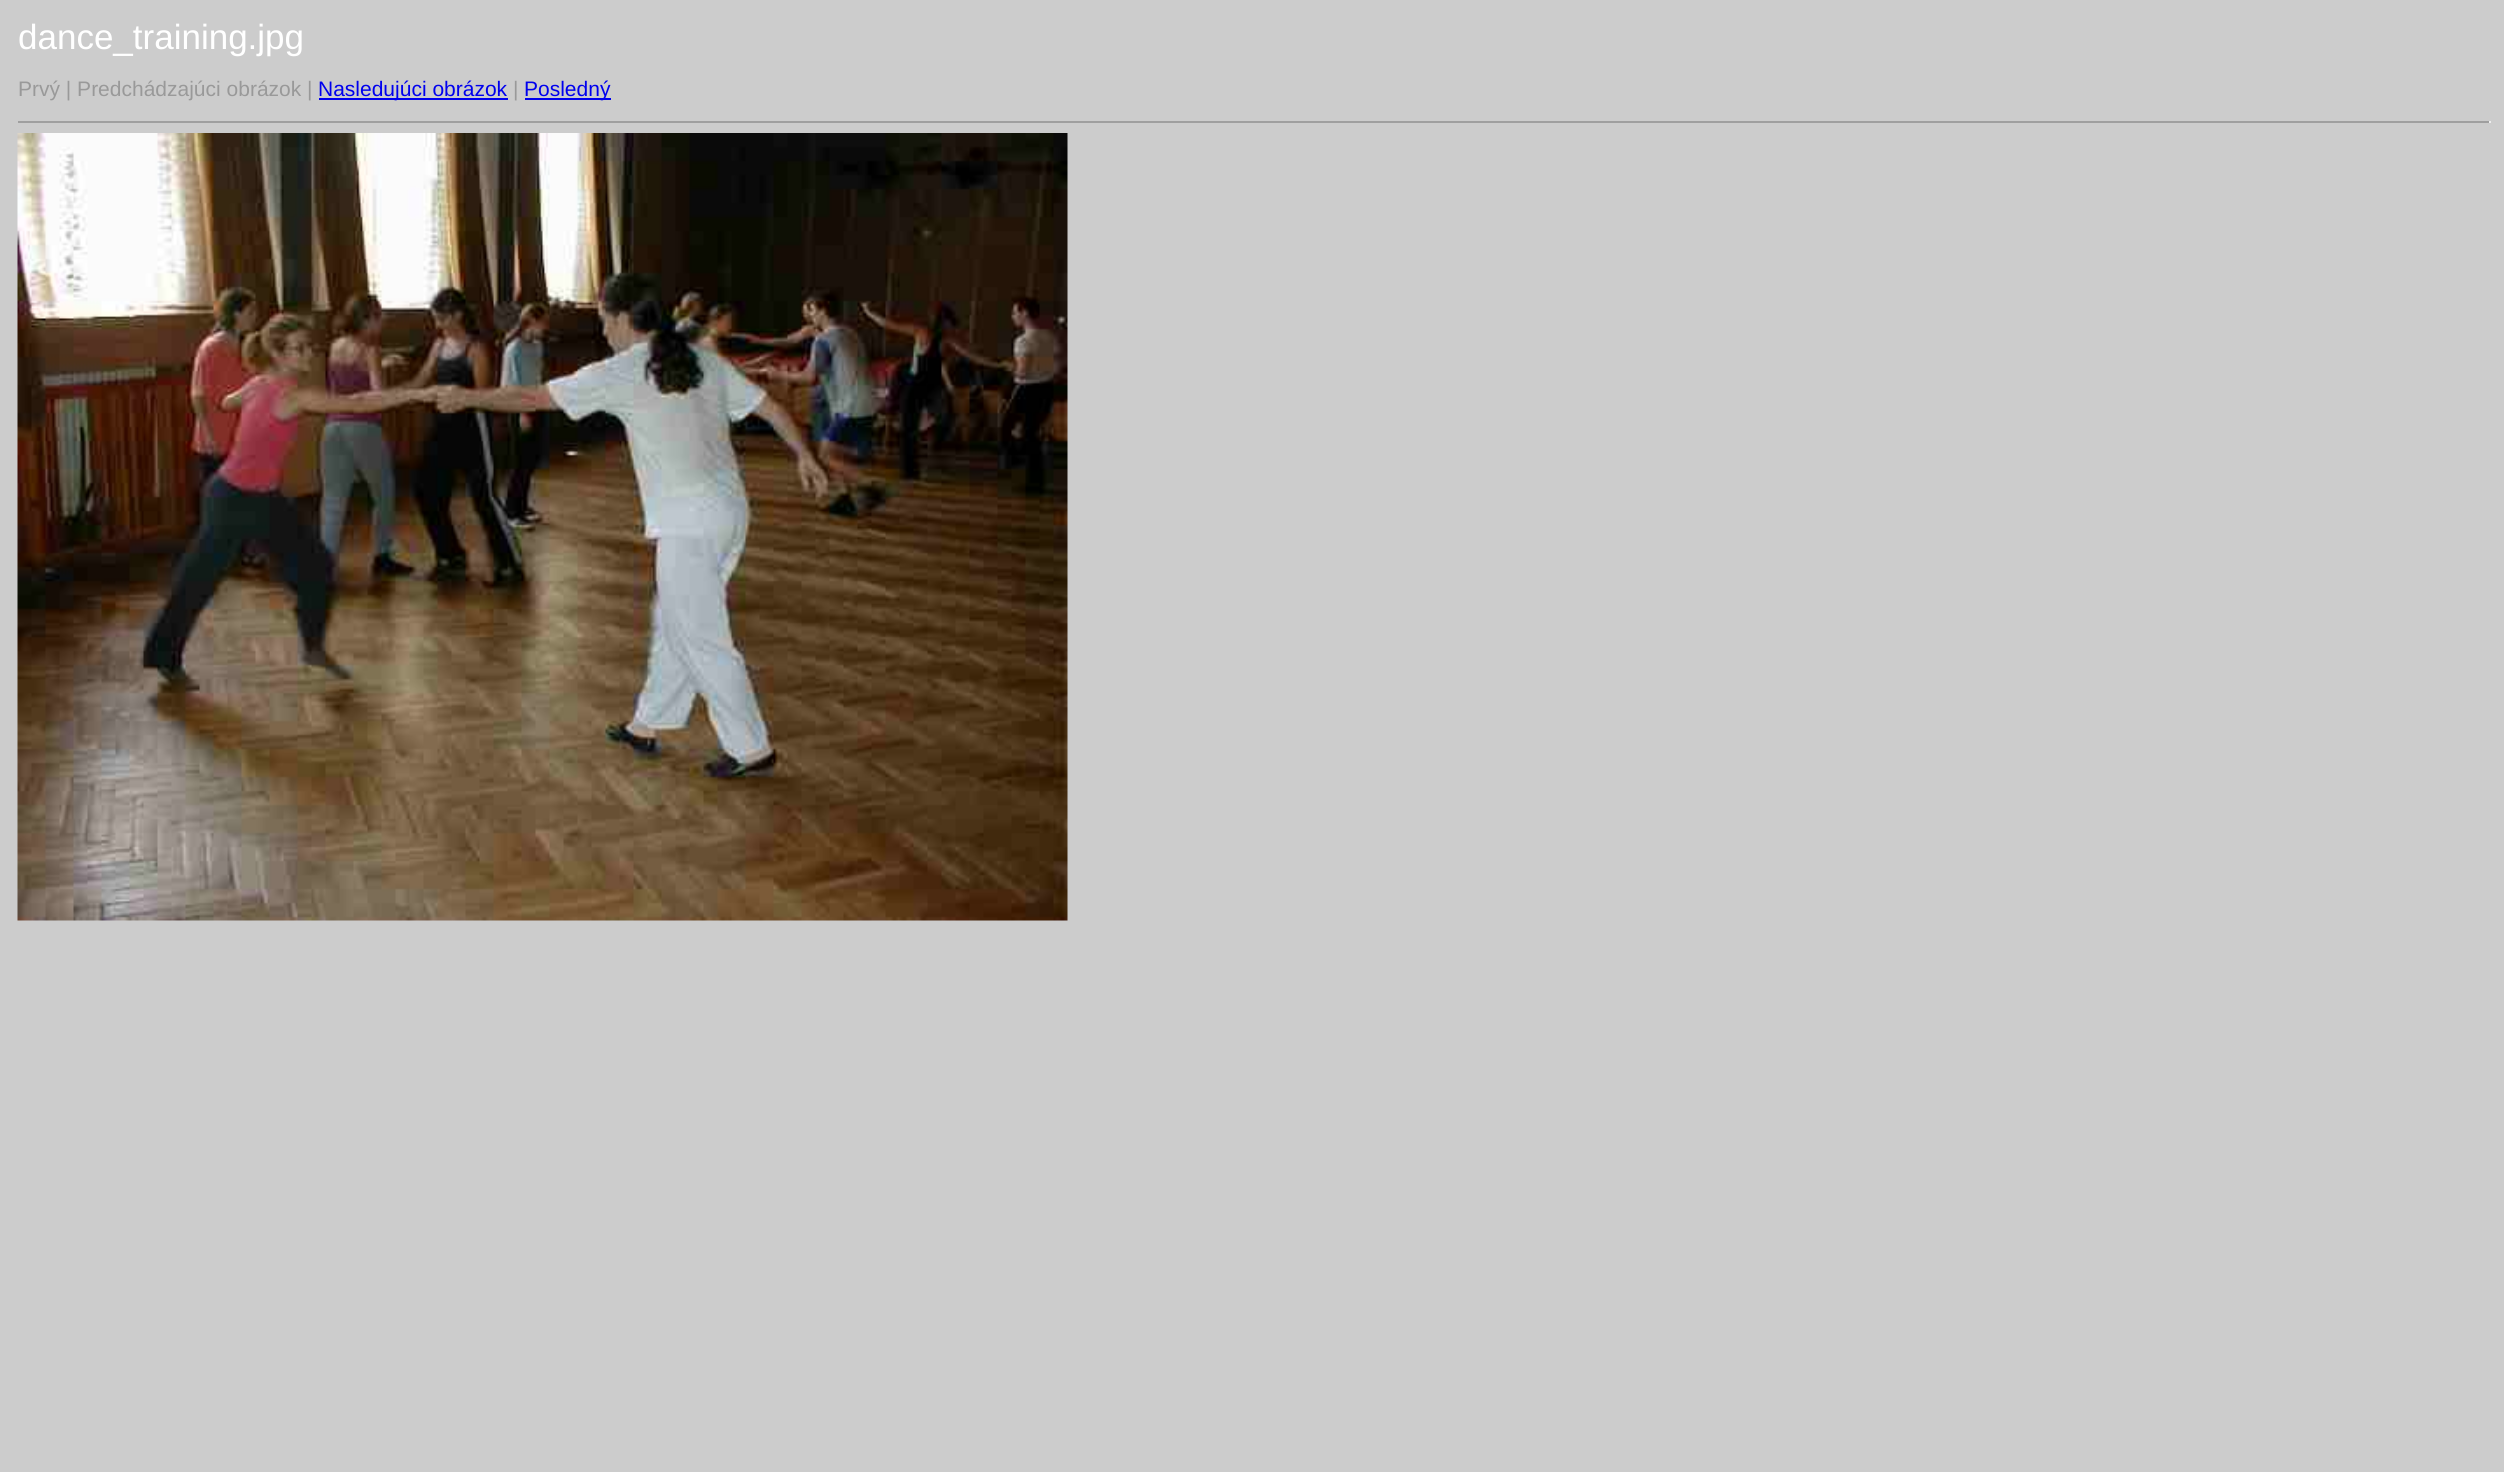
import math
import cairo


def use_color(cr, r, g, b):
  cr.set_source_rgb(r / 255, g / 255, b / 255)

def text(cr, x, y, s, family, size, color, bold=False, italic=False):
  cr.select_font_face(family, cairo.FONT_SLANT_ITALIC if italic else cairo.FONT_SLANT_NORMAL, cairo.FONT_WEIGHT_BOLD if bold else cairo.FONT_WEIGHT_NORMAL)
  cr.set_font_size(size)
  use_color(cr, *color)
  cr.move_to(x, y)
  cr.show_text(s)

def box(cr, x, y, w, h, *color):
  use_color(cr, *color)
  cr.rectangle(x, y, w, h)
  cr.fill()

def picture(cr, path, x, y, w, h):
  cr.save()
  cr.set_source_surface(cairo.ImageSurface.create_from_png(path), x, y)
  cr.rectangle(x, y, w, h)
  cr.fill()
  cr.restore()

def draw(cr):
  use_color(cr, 204, 204, 204)
  cr.paint()
  box(cr, 319, 98, 189, 2, 0, 0, 238)
  box(cr, 525, 98, 86, 2, 0, 0, 238)
  box(cr, 18, 121, 2472, 2, 159, 159, 159)
  box(cr, 2489, 121, 2, 2, 238, 238, 238)
  picture(cr, "img_01.png", 17, 133, 1051, 788)
  text(cr, 18, 49, "dance_training.jpg", "Liberation Sans", 35, (255, 255, 255))
  text(cr, 18, 96, "Prvý | Predchádzajúci obrázok |", "Liberation Sans", 21, (153, 153, 153))
  text(cr, 318, 96, "Nasledujúci obrázok", "Liberation Sans", 21, (0, 0, 238))
  text(cr, 513, 96, "|", "Liberation Sans", 21, (153, 153, 153))
  text(cr, 524, 96, "Posledný", "Liberation Sans", 21, (0, 0, 238))


surface = cairo.ImageSurface(cairo.FORMAT_RGB24, 2504, 1472)
cr = cairo.Context(surface)
options = cairo.FontOptions()
options.set_hint_metrics(cairo.HINT_METRICS_OFF)
options.set_hint_style(cairo.HINT_STYLE_NONE)
cr.set_font_options(options)
cr.set_miter_limit(4)
draw(cr)
surface.write_to_png("out.png")
